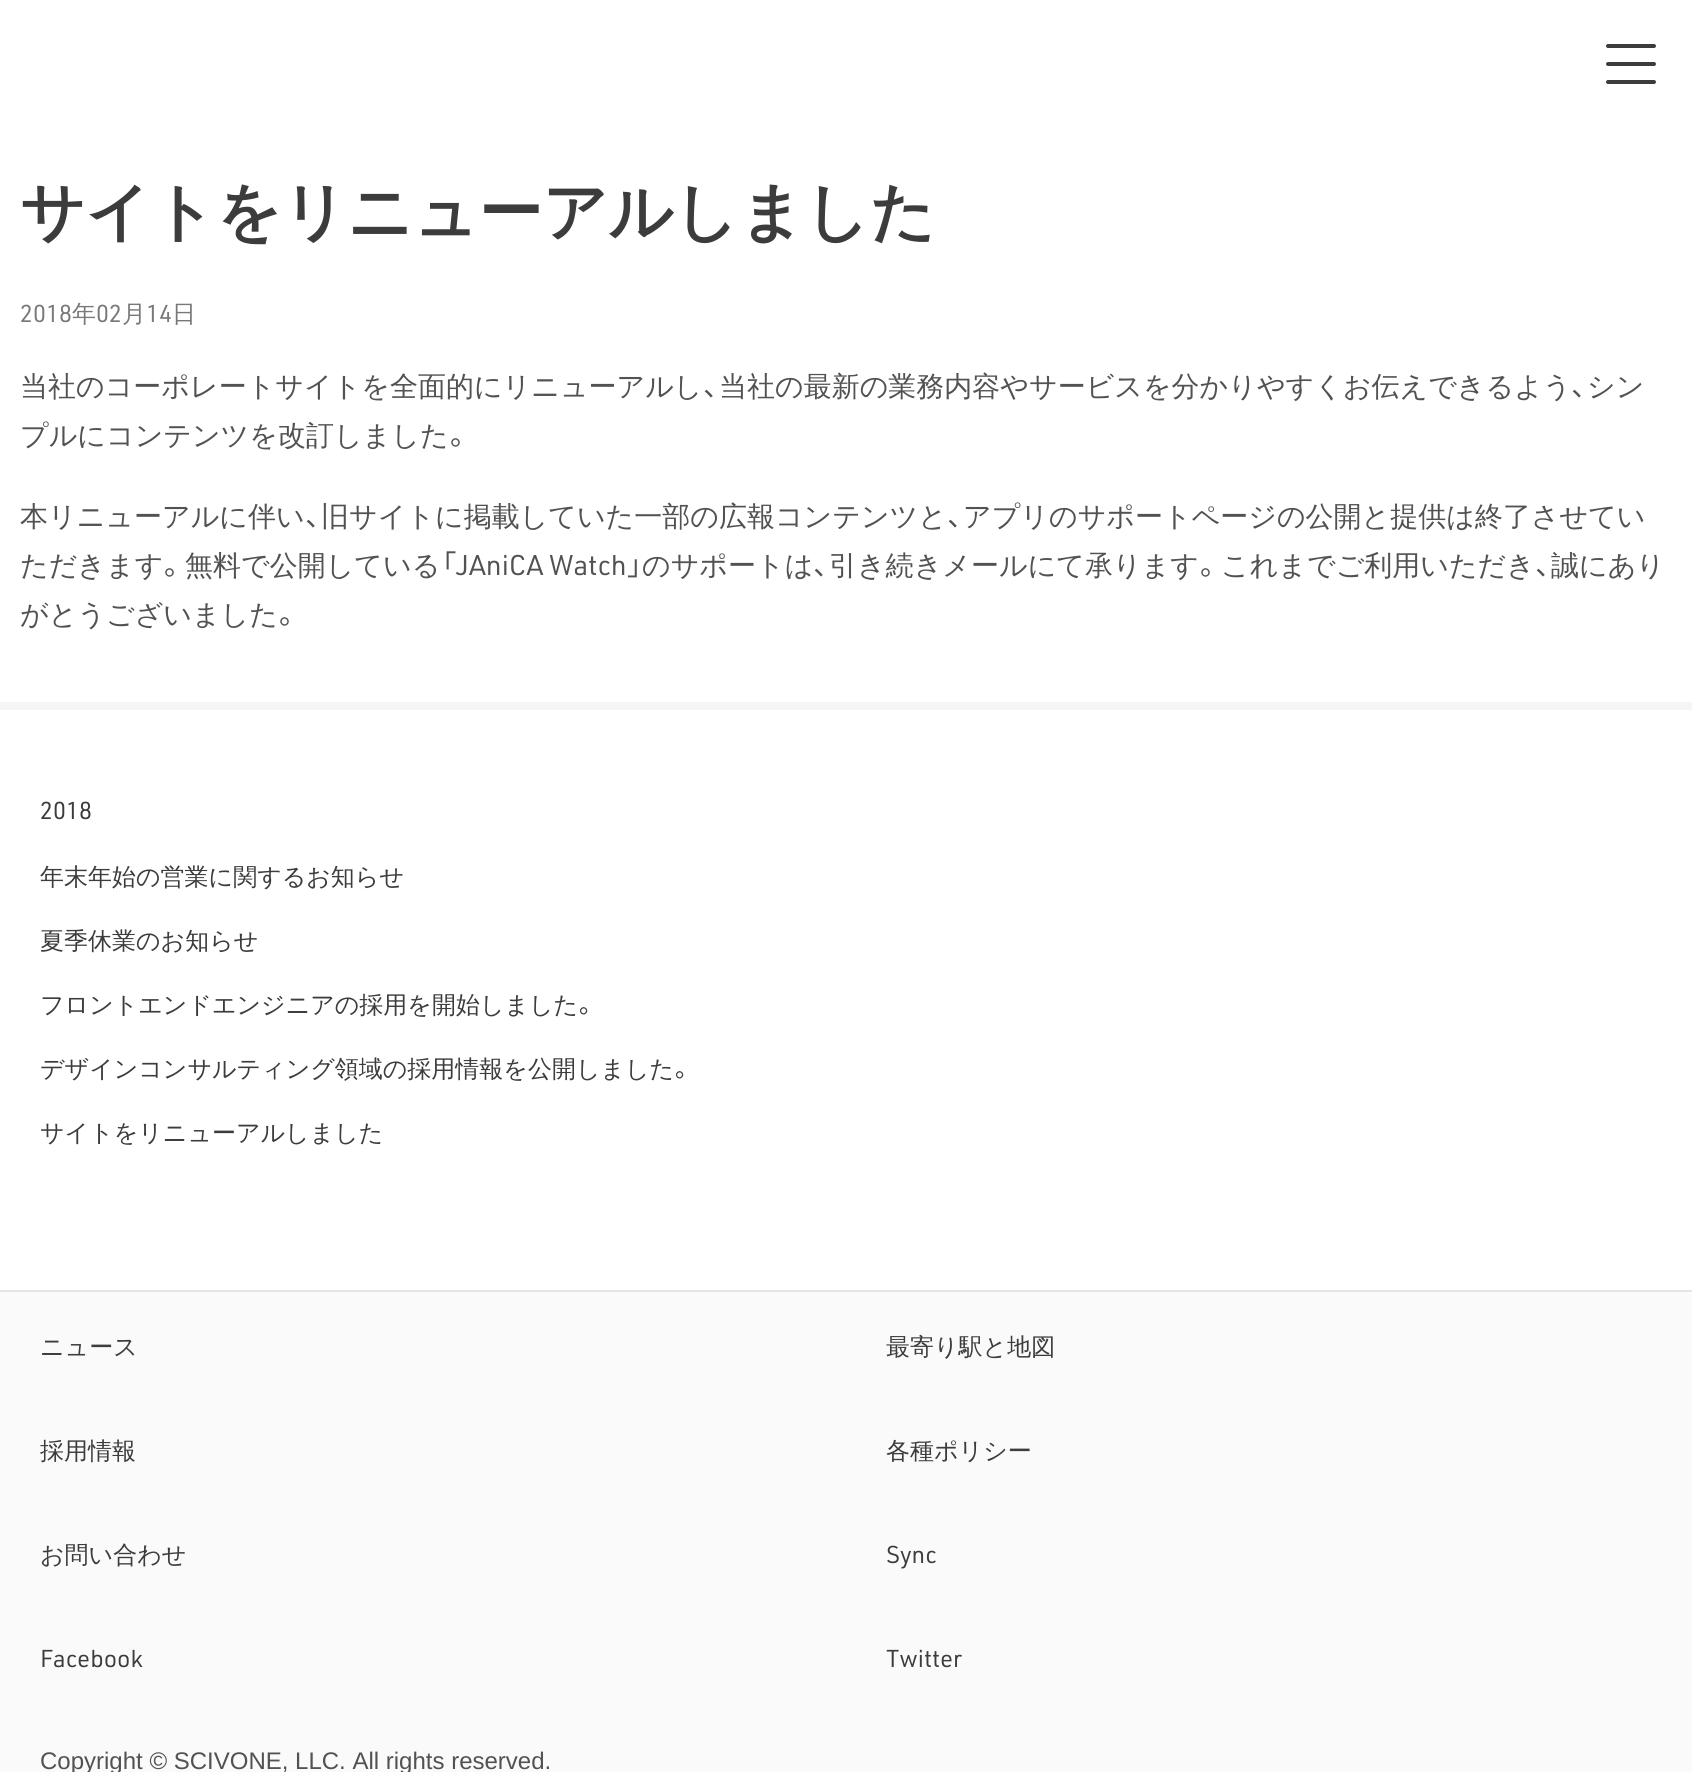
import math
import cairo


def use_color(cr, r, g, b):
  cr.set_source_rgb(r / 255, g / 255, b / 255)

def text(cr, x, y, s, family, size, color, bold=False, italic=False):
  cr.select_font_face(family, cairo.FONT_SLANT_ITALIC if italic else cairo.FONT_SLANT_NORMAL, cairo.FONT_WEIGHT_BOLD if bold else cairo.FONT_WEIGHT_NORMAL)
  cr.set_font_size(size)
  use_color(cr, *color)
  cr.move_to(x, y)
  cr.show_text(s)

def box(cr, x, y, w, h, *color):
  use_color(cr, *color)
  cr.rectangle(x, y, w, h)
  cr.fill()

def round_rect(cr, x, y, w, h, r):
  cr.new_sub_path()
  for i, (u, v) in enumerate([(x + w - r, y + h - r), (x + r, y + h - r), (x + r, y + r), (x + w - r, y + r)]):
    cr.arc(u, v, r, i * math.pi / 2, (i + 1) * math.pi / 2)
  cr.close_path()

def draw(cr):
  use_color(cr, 255, 255, 255)
  cr.paint()
  use_color(cr, 60, 60, 60)
  round_rect(cr, 1606, 44, 50, 4, 2)
  cr.fill()
  round_rect(cr, 1606, 62, 50, 4, 2)
  cr.fill()
  round_rect(cr, 1606, 80, 50, 4, 2)
  cr.fill()
  box(cr, 0, 702, 1692, 8, 245, 245, 245)
  box(cr, 0, 1292, 1692, 480, 250, 250, 250)
  box(cr, 0, 1290, 1692, 2, 229, 229, 229)
  text(cr, 20, 234, "サイトをリニューアルしました", "WenQuanYi Zen Hei", 64, (60, 60, 60), bold=True)
  text(cr, 20, 322, "2018", "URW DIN", 24, (120, 120, 120))
  text(cr, 72, 322, "年", "WenQuanYi Zen Hei Medium", 24, (120, 120, 120))
  text(cr, 96, 322, "02", "URW DIN", 24, (120, 120, 120))
  text(cr, 122, 322, "月", "WenQuanYi Zen Hei Medium", 24, (120, 120, 120))
  text(cr, 146, 322, "14", "URW DIN", 24, (120, 120, 120))
  text(cr, 172, 322, "日", "WenQuanYi Zen Hei Medium", 24, (120, 120, 120))
  text(cr, 20, 396, "当社のコーポレートサイトを全面的にリニューアルし", "WenQuanYi Zen Hei Medium", 28, (82, 82, 82))
  text(cr, 703, 396, "、", "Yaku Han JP", 28, (82, 82, 82))
  text(cr, 719, 396, "当社の最新の業務内容やサービスを分かりやすくお伝えできるよう", "WenQuanYi Zen Hei Medium", 28, (82, 82, 82))
  text(cr, 1571, 396, "、", "Yaku Han JP", 28, (82, 82, 82))
  text(cr, 1587, 396, "シン", "WenQuanYi Zen Hei Medium", 28, (82, 82, 82))
  text(cr, 20, 445, "プルにコンテンツを改訂しました", "WenQuanYi Zen Hei Medium", 28, (82, 82, 82))
  text(cr, 449, 445, "。", "Yaku Han JP", 28, (82, 82, 82))
  text(cr, 20, 526, "本リニューアルに伴い", "WenQuanYi Zen Hei Medium", 28, (82, 82, 82))
  text(cr, 305, 526, "、", "Yaku Han JP", 28, (82, 82, 82))
  text(cr, 321, 526, "旧サイトに掲載していた一部の広報コンテンツと", "WenQuanYi Zen Hei Medium", 28, (82, 82, 82))
  text(cr, 947, 526, "、", "Yaku Han JP", 28, (82, 82, 82))
  text(cr, 963, 526, "アプリのサポートページの公開と提供は終了させてい", "WenQuanYi Zen Hei Medium", 28, (82, 82, 82))
  text(cr, 20, 575, "ただきます", "WenQuanYi Zen Hei Medium", 28, (82, 82, 82))
  text(cr, 163, 575, "。", "Yaku Han JP", 28, (82, 82, 82))
  text(cr, 185, 575, "無料で公開している", "WenQuanYi Zen Hei Medium", 28, (82, 82, 82))
  text(cr, 441, 575, "「", "Yaku Han JP", 28, (82, 82, 82))
  text(cr, 456, 575, "JAniCA Watch", "URW DIN", 28, (82, 82, 82))
  text(cr, 627, 575, "」", "Yaku Han JP", 28, (82, 82, 82))
  text(cr, 642, 575, "のサポートは", "WenQuanYi Zen Hei Medium", 28, (82, 82, 82))
  text(cr, 813, 575, "、", "Yaku Han JP", 28, (82, 82, 82))
  text(cr, 829, 575, "引き続きメールにて承ります", "WenQuanYi Zen Hei Medium", 28, (82, 82, 82))
  text(cr, 1199, 575, "。", "Yaku Han JP", 28, (82, 82, 82))
  text(cr, 1221, 575, "これまでご利用いただき", "WenQuanYi Zen Hei Medium", 28, (82, 82, 82))
  text(cr, 1535, 575, "、", "Yaku Han JP", 28, (82, 82, 82))
  text(cr, 1551, 575, "誠にあり", "WenQuanYi Zen Hei Medium", 28, (82, 82, 82))
  text(cr, 20, 624, "がとうございました", "WenQuanYi Zen Hei Medium", 28, (82, 82, 82))
  text(cr, 278, 624, "。", "Yaku Han JP", 28, (82, 82, 82))
  text(cr, 40, 819, "2018", "URW DIN", 24, (60, 60, 60))
  text(cr, 40, 885, "年末年始の営業に関するお知らせ", "WenQuanYi Zen Hei Medium", 24, (60, 60, 60))
  text(cr, 40, 949, "夏季休業のお知らせ", "WenQuanYi Zen Hei Medium", 24, (60, 60, 60))
  text(cr, 40, 1013, "フロントエンドエンジニアの採用を開始しました", "WenQuanYi Zen Hei Medium", 24, (60, 60, 60))
  text(cr, 578, 1013, "。", "Yaku Han JP", 24, (60, 60, 60))
  text(cr, 40, 1077, "デザインコンサルティング領域の採用情報を公開しました", "WenQuanYi Zen Hei Medium", 24, (60, 60, 60))
  text(cr, 674, 1077, "。", "Yaku Han JP", 24, (60, 60, 60))
  text(cr, 40, 1141, "サイトをリニューアルしました", "WenQuanYi Zen Hei Medium", 24, (60, 60, 60))
  text(cr, 40, 1355, "ニュース", "WenQuanYi Zen Hei Medium", 24, (60, 60, 60))
  text(cr, 886, 1355, "最寄り駅と地図", "WenQuanYi Zen Hei Medium", 24, (60, 60, 60))
  text(cr, 40, 1459, "採用情報", "WenQuanYi Zen Hei Medium", 24, (60, 60, 60))
  text(cr, 886, 1459, "各種ポリシー", "WenQuanYi Zen Hei Medium", 24, (60, 60, 60))
  text(cr, 40, 1563, "お問い合わせ", "WenQuanYi Zen Hei Medium", 24, (60, 60, 60))
  text(cr, 886, 1563, "Sync", "URW DIN", 24, (60, 60, 60))
  text(cr, 40, 1667, "Facebook", "URW DIN", 24, (60, 60, 60))
  text(cr, 886, 1667, "Twitter", "URW DIN", 24, (60, 60, 60))
  text(cr, 40, 1769, "Copyright © SCIVONE, LLC. All rights reserved.", "Liberation Sans", 24, (82, 82, 82))


surface = cairo.ImageSurface(cairo.FORMAT_RGB24, 1692, 1772)
cr = cairo.Context(surface)
options = cairo.FontOptions()
options.set_hint_metrics(cairo.HINT_METRICS_OFF)
options.set_hint_style(cairo.HINT_STYLE_NONE)
cr.set_font_options(options)
cr.set_miter_limit(4)
draw(cr)
surface.write_to_png("out.png")
